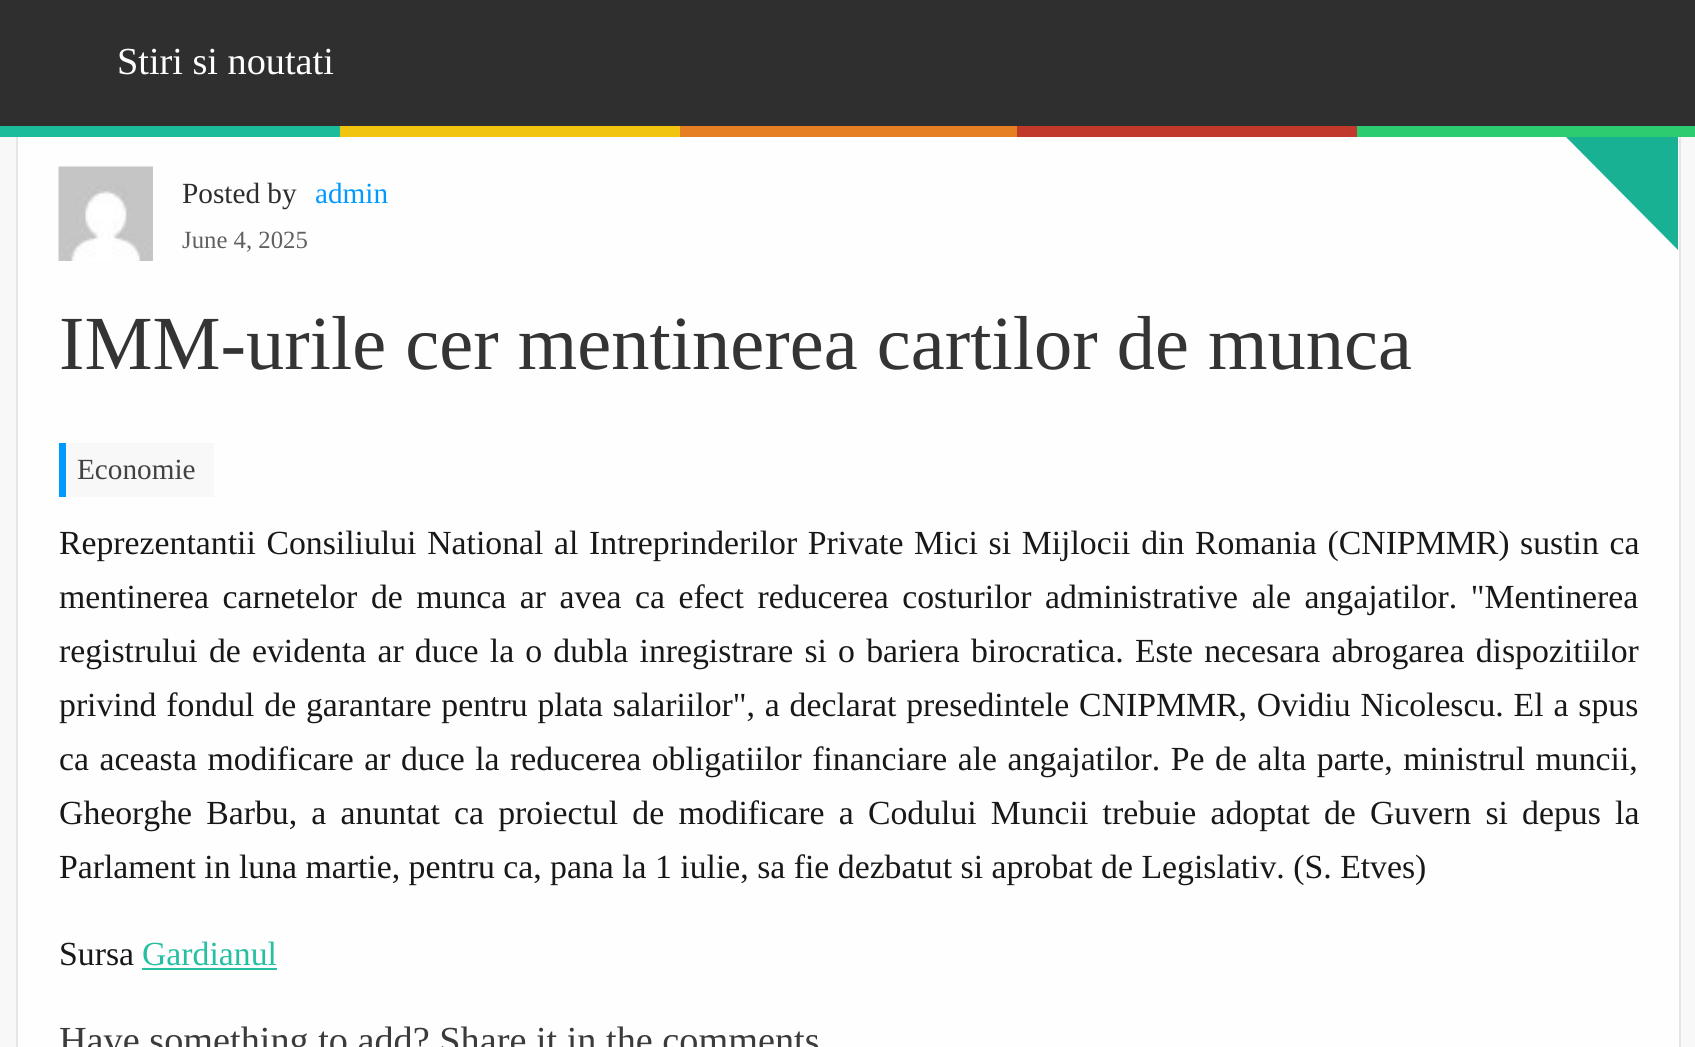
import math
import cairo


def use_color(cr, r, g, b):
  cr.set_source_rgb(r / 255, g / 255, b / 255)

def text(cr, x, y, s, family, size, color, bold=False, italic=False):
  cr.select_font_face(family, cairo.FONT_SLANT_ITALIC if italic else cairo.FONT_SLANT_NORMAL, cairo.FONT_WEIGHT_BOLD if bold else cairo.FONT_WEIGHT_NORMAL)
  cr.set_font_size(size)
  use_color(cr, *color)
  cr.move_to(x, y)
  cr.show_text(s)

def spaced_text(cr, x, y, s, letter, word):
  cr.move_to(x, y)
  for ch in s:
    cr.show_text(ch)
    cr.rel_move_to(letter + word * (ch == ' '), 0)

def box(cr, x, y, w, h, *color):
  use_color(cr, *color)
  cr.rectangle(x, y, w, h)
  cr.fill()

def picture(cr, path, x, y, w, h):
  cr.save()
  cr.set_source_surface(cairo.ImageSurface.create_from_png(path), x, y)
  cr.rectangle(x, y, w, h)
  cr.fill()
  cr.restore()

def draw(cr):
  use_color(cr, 248, 248, 248)
  cr.paint()
  box(cr, 0, 0, 1695, 126, 47, 47, 47)
  box(cr, 1357, 126, 338, 11, 46, 204, 113)
  box(cr, 0, 126, 340, 11, 26, 188, 156)
  box(cr, 340, 126, 340, 11, 241, 196, 15)
  box(cr, 680, 126, 337, 11, 230, 126, 34)
  box(cr, 1017, 126, 340, 11, 192, 57, 43)
  box(cr, 18, 137, 1661, 910, 254, 254, 254)
  box(cr, 1679, 137, 2, 910, 230, 230, 230)
  box(cr, 16, 137, 2, 910, 230, 230, 230)
  picture(cr, "img_01.png", 58, 166, 95, 95)
  use_color(cr, 25, 177, 147)
  cr.new_path()
  cr.move_to(1566, 137)
  cr.line_to(1678, 137)
  cr.line_to(1678, 250)
  cr.close_path()
  cr.fill()
  box(cr, 66, 443, 148, 54, 248, 248, 248)
  box(cr, 59, 443, 7, 54, 0, 154, 255)
  box(cr, 142, 968, 135, 2, 37, 191, 161)
  text(cr, 117, 74, "Stiri si noutati", "Liberation Serif", 38.25, (255, 255, 255))
  text(cr, 182, 203, "Posted by", "Liberation Serif", 29.25, (45, 45, 45))
  text(cr, 315, 203, "admin", "Liberation Serif", 29.25, (0, 154, 255))
  text(cr, 182, 248, "June 4, 2025", "Liberation Serif", 24.75, (96, 96, 96))
  text(cr, 59, 369, "IMM-urile cer mentinerea cartilor de munca", "Liberation Serif", 76.5, (52, 52, 52))
  text(cr, 77, 479, "Economie", "Liberation Serif", 29.25, (66, 66, 66))
  cr.set_font_size(33.75)
  use_color(cr, 24, 24, 24)
  spaced_text(cr, 59, 554, "Reprezentantii Consiliului National al Intreprinderilor Private Mici si Mijlocii din Romania (CNIPMMR) sustin ca", 0, 2.25)
  spaced_text(cr, 59, 608, "mentinerea carnetelor de munca ar avea ca efect reducerea costurilor administrative ale angajatilor. \"Mentinerea", 0, 5.1)
  spaced_text(cr, 59, 662, "registrului de evidenta ar duce la o dubla inregistrare si o bariera birocratica. Este necesara abrogarea dispozitiilor", 0, 2.75)
  spaced_text(cr, 59, 716, "privind fondul de garantare pentru plata salariilor\", a declarat presedintele CNIPMMR, Ovidiu Nicolescu. El a spus", 0, 1.4)
  spaced_text(cr, 59, 770, "ca aceasta modificare ar duce la reducerea obligatiilor financiare ale angajatilor. Pe de alta parte, ministrul muncii,", 0, 2.1)
  spaced_text(cr, 59, 824, "Gheorghe Barbu, a anuntat ca proiectul de modificare a Codului Muncii trebuie adoptat de Guvern si depus la", 0, 5.75)
  text(cr, 59, 878, "Parlament in luna martie, pentru ca, pana la 1 iulie, sa fie dezbatut si aprobat de Legislativ. (S. Etves)", "Liberation Serif", 33.75, (24, 24, 24))
  text(cr, 59, 965, "Sursa", "Liberation Serif", 33.75, (24, 24, 24))
  text(cr, 142, 965, "Gardianul", "Liberation Serif", 33.75, (37, 191, 161))
  text(cr, 59, 1053, "Have something to add? Share it in the comments", "Liberation Serif", 38.25, (59, 59, 59))


surface = cairo.ImageSurface(cairo.FORMAT_RGB24, 1695, 1047)
cr = cairo.Context(surface)
options = cairo.FontOptions()
options.set_hint_metrics(cairo.HINT_METRICS_OFF)
options.set_hint_style(cairo.HINT_STYLE_NONE)
cr.set_font_options(options)
cr.set_miter_limit(4)
draw(cr)
surface.write_to_png("out.png")
